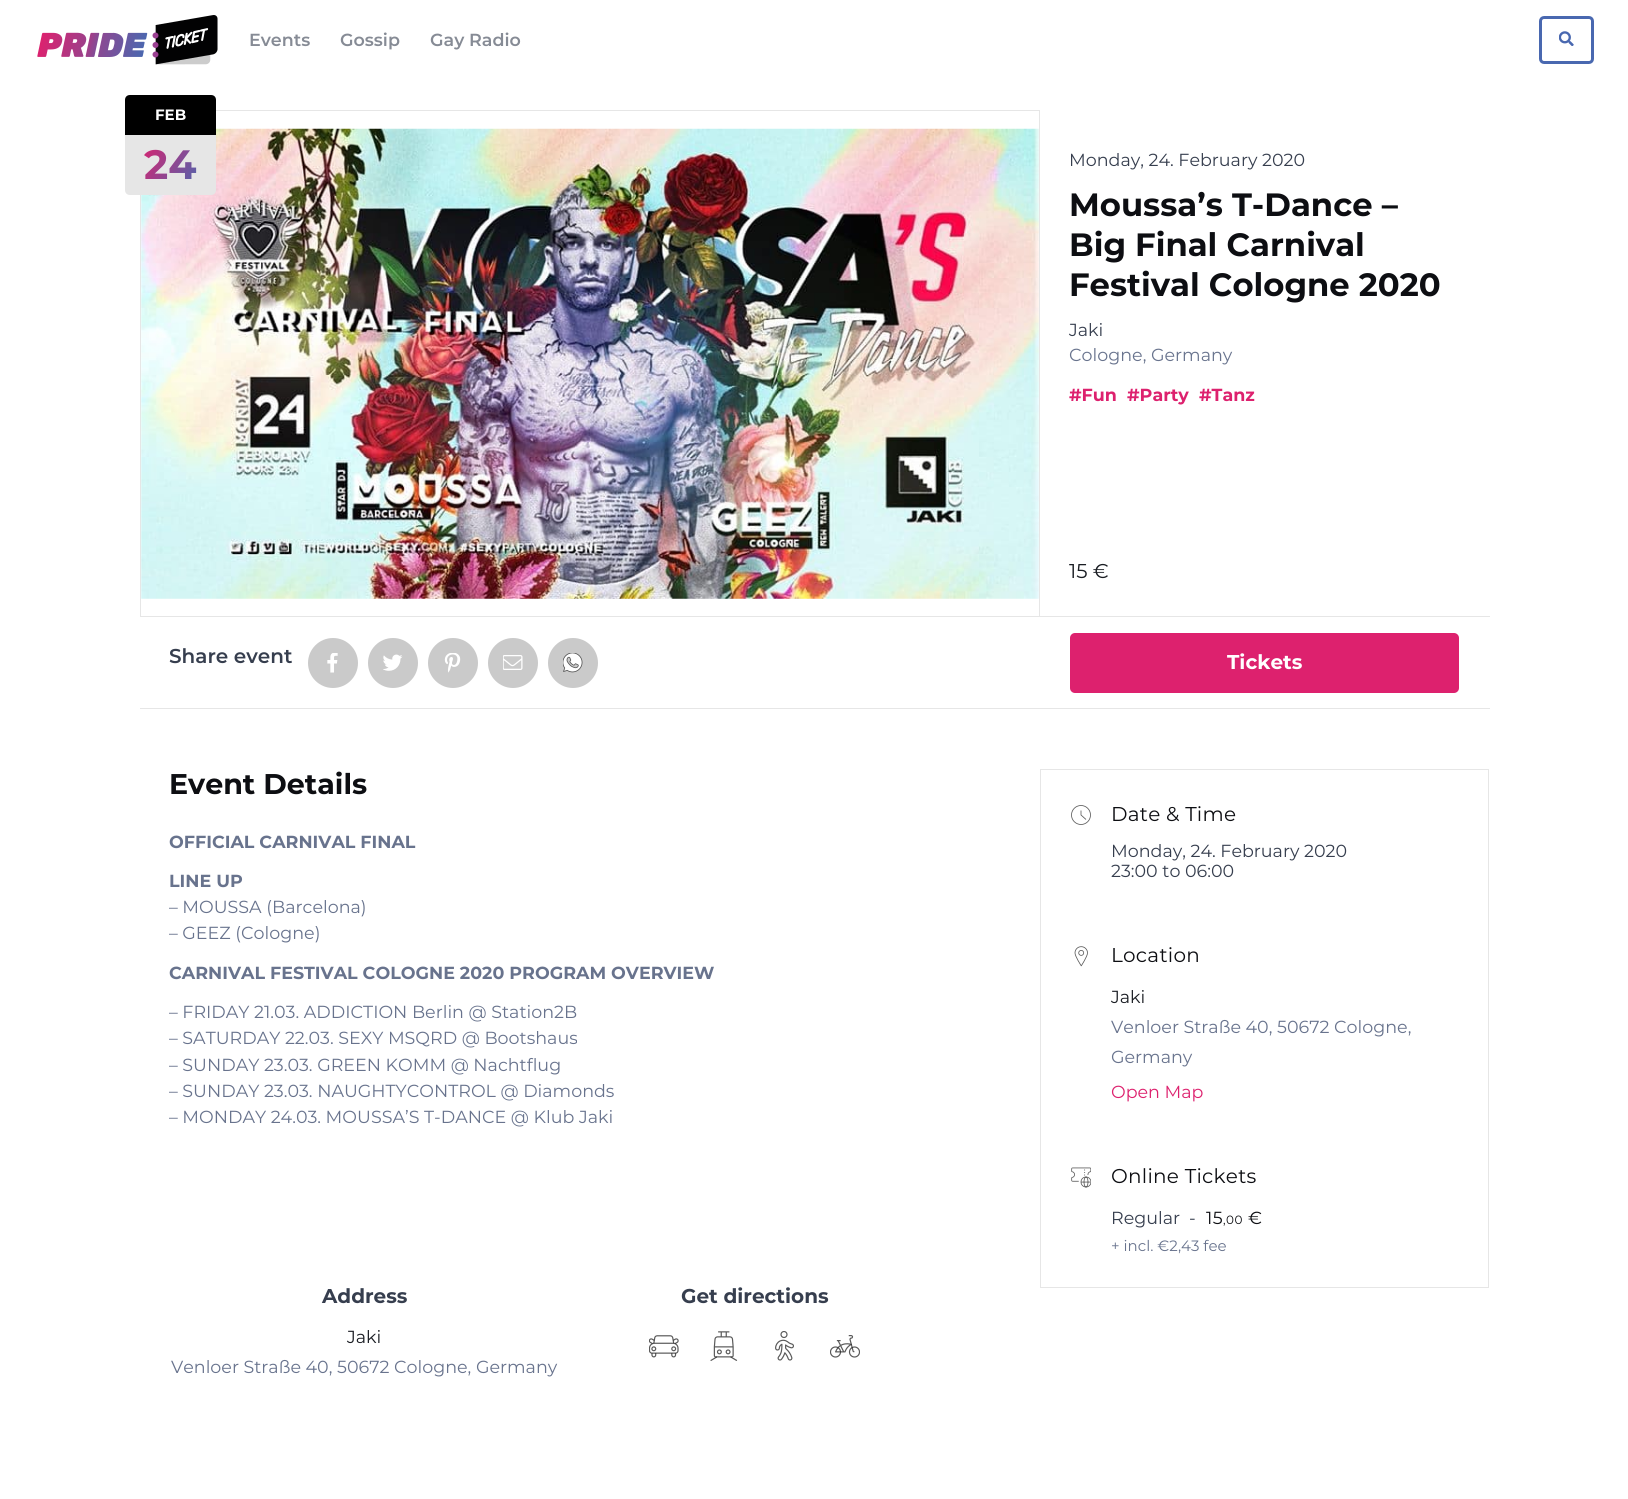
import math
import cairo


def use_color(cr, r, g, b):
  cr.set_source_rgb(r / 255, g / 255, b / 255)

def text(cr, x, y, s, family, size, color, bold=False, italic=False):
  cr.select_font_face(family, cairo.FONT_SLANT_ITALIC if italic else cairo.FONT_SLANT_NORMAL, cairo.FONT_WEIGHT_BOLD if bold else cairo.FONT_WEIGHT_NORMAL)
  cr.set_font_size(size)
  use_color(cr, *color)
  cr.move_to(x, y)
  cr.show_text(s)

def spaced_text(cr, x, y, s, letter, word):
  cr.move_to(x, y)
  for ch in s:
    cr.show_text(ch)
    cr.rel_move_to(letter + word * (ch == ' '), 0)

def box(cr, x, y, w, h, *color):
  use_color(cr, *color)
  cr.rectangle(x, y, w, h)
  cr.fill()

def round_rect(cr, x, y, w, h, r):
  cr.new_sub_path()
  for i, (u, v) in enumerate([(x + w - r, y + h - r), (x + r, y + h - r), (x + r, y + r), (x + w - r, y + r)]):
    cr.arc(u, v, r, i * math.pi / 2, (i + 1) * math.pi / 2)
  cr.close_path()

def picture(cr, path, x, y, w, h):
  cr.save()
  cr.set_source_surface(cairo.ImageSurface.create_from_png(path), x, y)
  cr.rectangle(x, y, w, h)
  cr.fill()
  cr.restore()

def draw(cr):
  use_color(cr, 255, 255, 255)
  cr.paint()
  picture(cr, "img_01.png", 37, 15, 181, 50)
  round_rect(cr, 1540.5, 17.5, 52, 45, 3.5)
  use_color(cr, 73, 104, 176)
  cr.set_line_width(3)
  cr.stroke()
  picture(cr, "img_02.png", 1559, 31, 15, 15)
  picture(cr, "img_03.png", 141, 128, 898, 471)
  use_color(cr, 0, 0, 0)
  cr.new_path()
  cr.move_to(130, 95)
  cr.line_to(211, 95)
  cr.curve_to(214, 95, 216, 97, 216, 100)
  cr.line_to(216, 135)
  cr.line_to(125, 135)
  cr.line_to(125, 100)
  cr.curve_to(125, 97, 127, 95, 130, 95)
  cr.close_path()
  cr.fill()
  use_color(cr, 230, 230, 230)
  cr.new_path()
  cr.move_to(125, 135)
  cr.line_to(216, 135)
  cr.line_to(216, 190)
  cr.curve_to(216, 193, 214, 195, 211, 195)
  cr.line_to(130, 195)
  cr.curve_to(127, 195, 125, 193, 125, 190)
  cr.close_path()
  cr.fill()
  box(cr, 216, 110, 824, 1, 230, 230, 230)
  box(cr, 1039, 110, 1, 506, 230, 230, 230)
  box(cr, 140, 195, 1, 421, 230, 230, 230)
  box(cr, 140, 616, 1350, 1, 230, 230, 230)
  box(cr, 140, 708, 1350, 1, 230, 230, 230)
  use_color(cr, 202, 202, 202)
  cr.arc(333, 663, 25, 0, 2 * math.pi)
  cr.fill()
  picture(cr, "img_04.png", 327, 653, 11, 20)
  cr.arc(393, 663, 25, 0, 2 * math.pi)
  cr.fill()
  picture(cr, "img_05.png", 383, 654, 20, 17)
  cr.arc(453, 663, 25, 0, 2 * math.pi)
  cr.fill()
  picture(cr, "img_06.png", 444, 653, 17, 20)
  cr.arc(513, 663, 25, 0, 2 * math.pi)
  cr.fill()
  picture(cr, "img_07.png", 503, 655, 20, 15)
  cr.arc(573, 663, 25, 0, 2 * math.pi)
  cr.fill()
  picture(cr, "img_08.png", 563, 653, 20, 20)
  use_color(cr, 221, 33, 110)
  round_rect(cr, 1070, 633, 389, 60, 5)
  cr.fill()
  picture(cr, "img_09.png", 649, 1335, 30, 23)
  picture(cr, "img_10.png", 710, 1331, 28, 30)
  picture(cr, "img_11.png", 775, 1331, 19, 30)
  picture(cr, "img_12.png", 830, 1335, 30, 23)
  cr.rectangle(1040.5, 769.5, 448, 518)
  use_color(cr, 230, 230, 230)
  cr.set_line_width(1)
  cr.stroke()
  cr.arc(1081, 815, 9.5, 0, 2 * math.pi)
  use_color(cr, 89, 89, 89)
  cr.set_line_width(0.8)
  cr.stroke()
  cr.new_path()
  cr.move_to(1081, 810.5)
  cr.line_to(1081, 815)
  cr.line_to(1086, 819.5)
  cr.set_line_join(cairo.LINE_JOIN_ROUND)
  cr.stroke()
  picture(cr, "img_13.png", 1074, 946, 14, 21)
  picture(cr, "img_14.png", 1071, 1167, 20, 21)
  text(cr, 249, 46, "Events", "Montserrat SemiBold", 17.5, (134, 139, 149))
  text(cr, 340, 46, "Gossip", "Montserrat SemiBold", 17.5, (134, 139, 149))
  text(cr, 430, 46, "Gay Radio", "Montserrat SemiBold", 17.5, (134, 139, 149))
  text(cr, 155, 120, "FEB", "Montserrat", 15, (255, 255, 255), bold=True)
  cr.set_font_size(41)
  gradient = cairo.LinearGradient(203, 184, 138, 146)
  gradient.add_color_stop_rgba(0, 0.286, 0.408, 0.69, 1)
  gradient.add_color_stop_rgba(1, 0.867, 0.129, 0.431, 1)
  cr.set_source(gradient)
  cr.move_to(144, 179)
  cr.show_text("24")
  text(cr, 1069, 166, "Monday, 24. February 2020", "Montserrat", 17.5, (54, 62, 78))
  text(cr, 1069, 216, "Moussa’s T-Dance –", "Montserrat", 32.25, (13, 14, 18), bold=True)
  text(cr, 1069, 256, "Big Final Carnival", "Montserrat", 32.25, (13, 14, 18), bold=True)
  text(cr, 1069, 296, "Festival Cologne 2020", "Montserrat", 32.25, (13, 14, 18), bold=True)
  text(cr, 1069, 336, "Jaki", "Montserrat", 17.5, (54, 62, 78))
  text(cr, 1069, 361, "Cologne, Germany", "Montserrat", 17.5, (104, 115, 141))
  text(cr, 1069, 401, "#Fun", "Montserrat", 17.5, (221, 33, 110), bold=True)
  text(cr, 1127, 401, "#Party", "Montserrat", 17.5, (221, 33, 110), bold=True)
  text(cr, 1199, 401, "#Tanz", "Montserrat", 17.5, (221, 33, 110), bold=True)
  text(cr, 1069, 578, "15 €", "Montserrat", 20, (26, 29, 35))
  text(cr, 169, 663, "Share event", "Montserrat SemiBold", 20, (54, 62, 78))
  text(cr, 1227, 669, "Tickets", "Montserrat", 20, (255, 255, 255), bold=True)
  text(cr, 169, 794, "Event Details", "Montserrat", 28.5, (13, 14, 18), bold=True)
  text(cr, 169, 848, "OFFICIAL CARNIVAL FINAL", "Montserrat", 17.5, (104, 115, 141), bold=True)
  text(cr, 169, 887, "LINE UP", "Montserrat", 17.5, (104, 115, 141), bold=True)
  text(cr, 169, 913, "– MOUSSA (Barcelona)", "Montserrat", 17.5, (104, 115, 141))
  text(cr, 169, 939, "– GEEZ (Cologne)", "Montserrat", 17.5, (104, 115, 141))
  text(cr, 169, 979, "CARNIVAL FESTIVAL COLOGNE 2020 PROGRAM OVERVIEW", "Montserrat", 17.5, (104, 115, 141), bold=True)
  text(cr, 169, 1018, "– FRIDAY 21.03. ADDICTION Berlin @ Station2B", "Montserrat", 17.5, (104, 115, 141))
  text(cr, 169, 1044, "– SATURDAY 22.03. SEXY MSQRD @ Bootshaus", "Montserrat", 17.5, (104, 115, 141))
  text(cr, 169, 1071, "– SUNDAY 23.03. GREEN KOMM @ Nachtflug", "Montserrat", 17.5, (104, 115, 141))
  text(cr, 169, 1097, "– SUNDAY 23.03. NAUGHTYCONTROL @ Diamonds", "Montserrat", 17.5, (104, 115, 141))
  text(cr, 169, 1123, "– MONDAY 24.03. MOUSSA’S T-DANCE @ Klub Jaki", "Montserrat", 17.5, (104, 115, 141))
  text(cr, 322, 1303, "Address", "Montserrat", 20, (54, 62, 78), bold=True)
  text(cr, 347, 1343, "Jaki", "Montserrat", 17.5, (26, 29, 35))
  text(cr, 171, 1373, "Venloer Straße 40, 50672 Cologne, Germany", "Montserrat", 17.5, (104, 115, 141))
  text(cr, 681, 1303, "Get directions", "Montserrat", 20, (54, 62, 78), bold=True)
  cr.select_font_face("Montserrat")
  use_color(cr, 13, 14, 18)
  spaced_text(cr, 1111, 821, "Date & Time", 0.25, 0)
  text(cr, 1111, 857, "Monday, 24. February 2020", "Montserrat", 17.5, (54, 62, 78))
  text(cr, 1111, 877, "23:00 to 06:00", "Montserrat", 17.5, (54, 62, 78))
  cr.set_font_size(20)
  use_color(cr, 13, 14, 18)
  spaced_text(cr, 1111, 962, "Location", 0.25, 0)
  text(cr, 1111, 1003, "Jaki", "Montserrat", 17.5, (26, 29, 35))
  text(cr, 1111, 1033, "Venloer Straße 40, 50672 Cologne,", "Montserrat", 17.5, (104, 115, 141))
  text(cr, 1111, 1063, "Germany", "Montserrat", 17.5, (104, 115, 141))
  text(cr, 1111, 1098, "Open Map", "Montserrat", 17.5, (221, 33, 110))
  cr.set_font_size(20)
  use_color(cr, 13, 14, 18)
  spaced_text(cr, 1111, 1183, "Online Tickets", 0.25, 0)
  text(cr, 1111, 1224, "Regular", "Montserrat", 17.5, (54, 62, 78))
  text(cr, 1189, 1224, "-", "Montserrat", 17.5, (54, 62, 78))
  use_color(cr, 13, 14, 18)
  spaced_text(cr, 1206, 1224, "15", 0.5, 0)
  cr.set_font_size(12)
  spaced_text(cr, 1223, 1224, ",00", 0.5, 0)
  cr.set_font_size(17.5)
  spaced_text(cr, 1248, 1224, "€", 0.5, 0)
  text(cr, 1111, 1251, "+ incl. €2,43 fee", "Montserrat", 15, (104, 115, 141))


surface = cairo.ImageSurface(cairo.FORMAT_RGB24, 1628, 1499)
cr = cairo.Context(surface)
options = cairo.FontOptions()
options.set_hint_metrics(cairo.HINT_METRICS_OFF)
options.set_hint_style(cairo.HINT_STYLE_NONE)
cr.set_font_options(options)
cr.set_miter_limit(4)
draw(cr)
surface.write_to_png("out.png")
